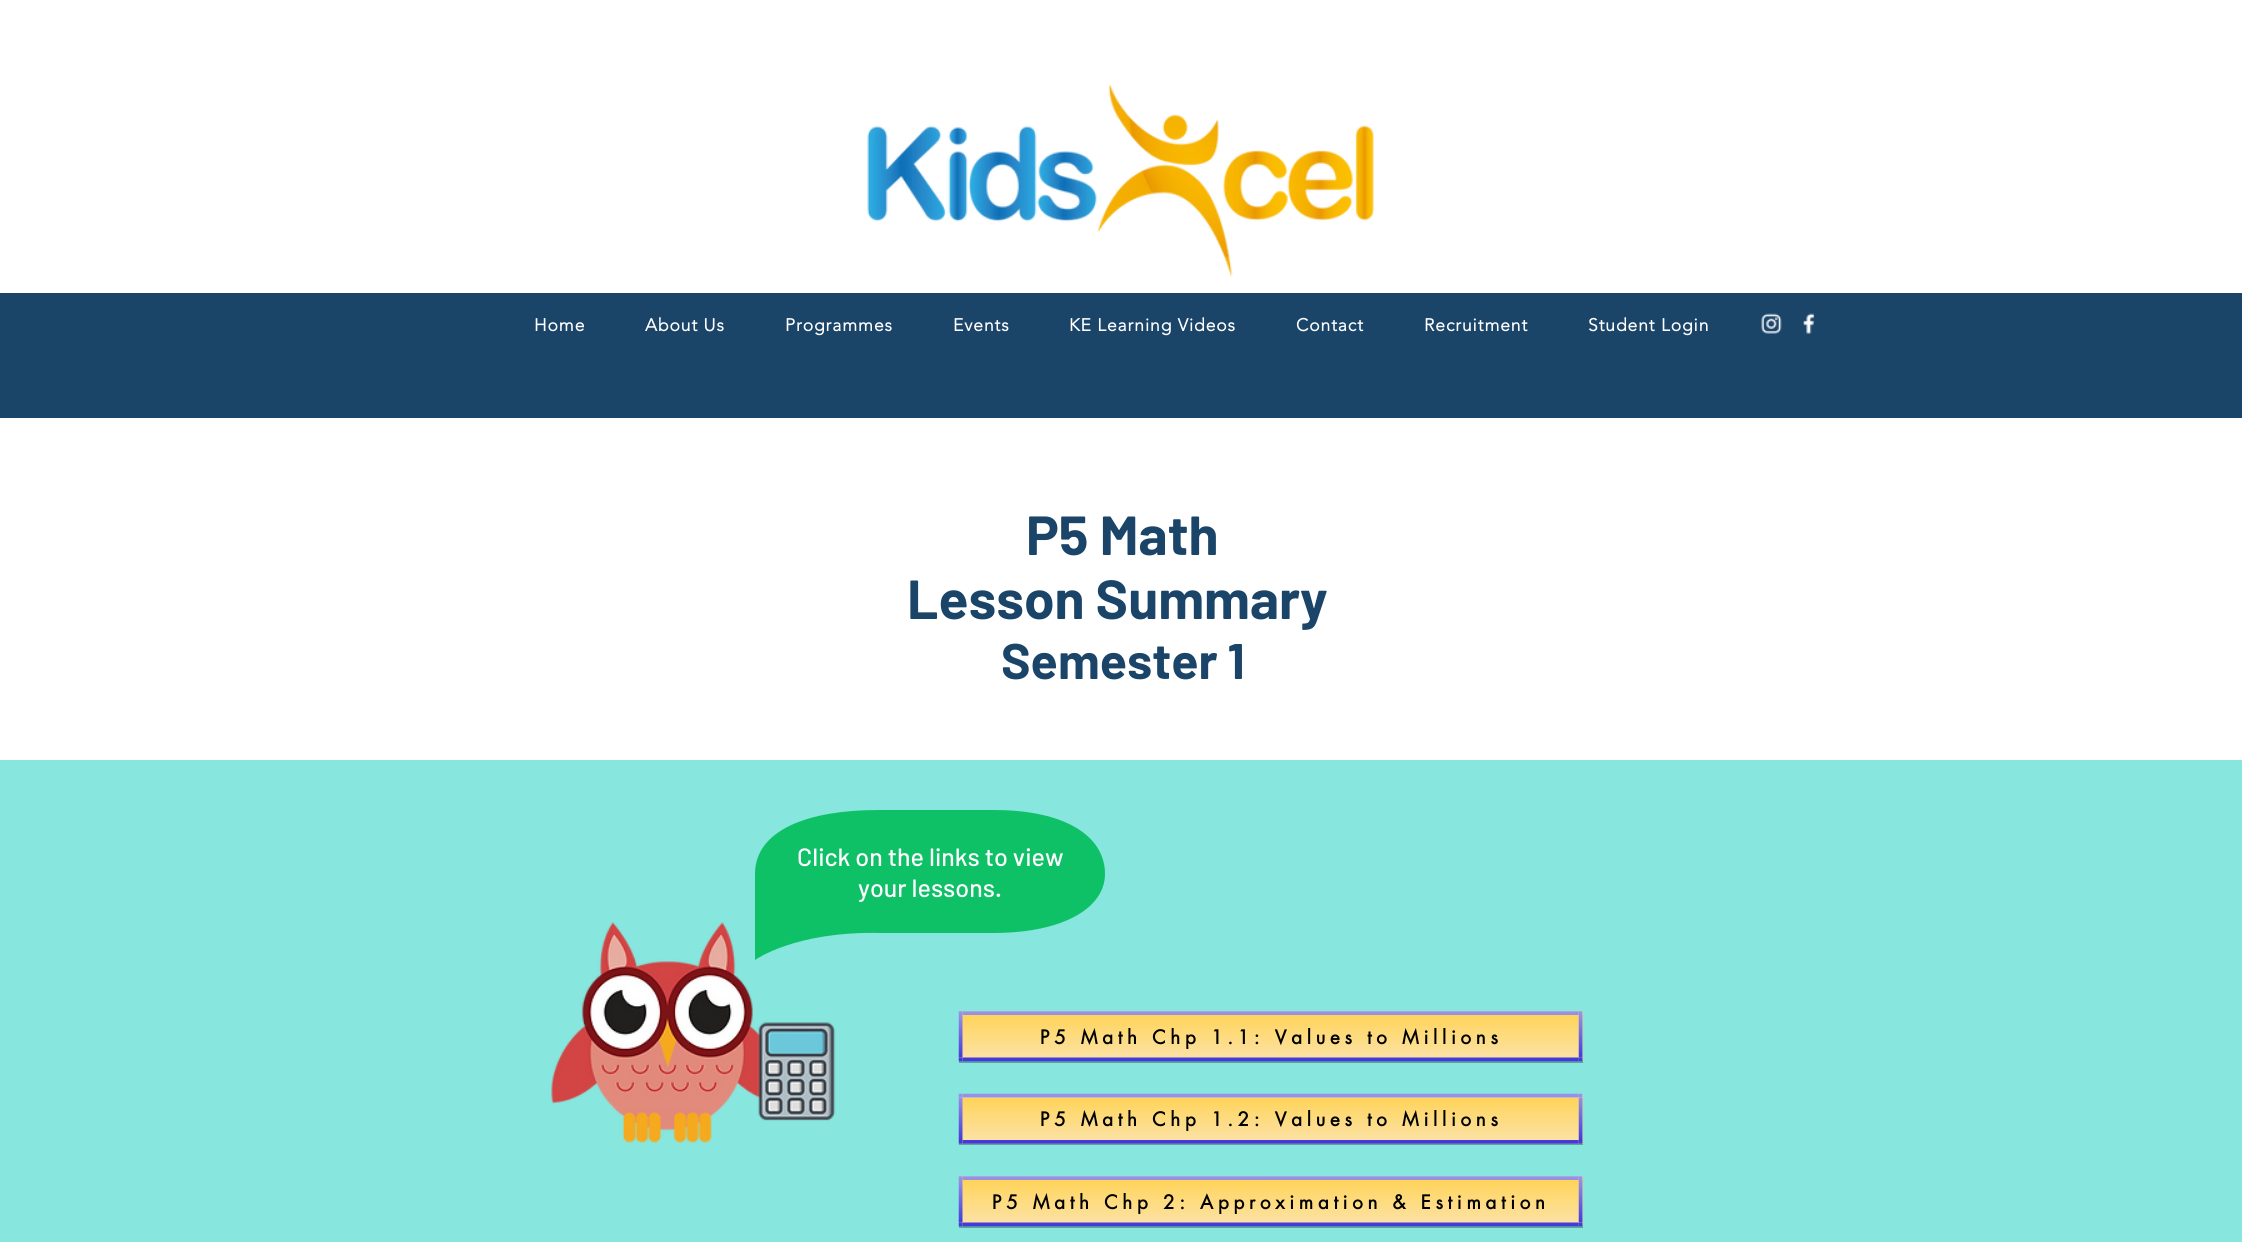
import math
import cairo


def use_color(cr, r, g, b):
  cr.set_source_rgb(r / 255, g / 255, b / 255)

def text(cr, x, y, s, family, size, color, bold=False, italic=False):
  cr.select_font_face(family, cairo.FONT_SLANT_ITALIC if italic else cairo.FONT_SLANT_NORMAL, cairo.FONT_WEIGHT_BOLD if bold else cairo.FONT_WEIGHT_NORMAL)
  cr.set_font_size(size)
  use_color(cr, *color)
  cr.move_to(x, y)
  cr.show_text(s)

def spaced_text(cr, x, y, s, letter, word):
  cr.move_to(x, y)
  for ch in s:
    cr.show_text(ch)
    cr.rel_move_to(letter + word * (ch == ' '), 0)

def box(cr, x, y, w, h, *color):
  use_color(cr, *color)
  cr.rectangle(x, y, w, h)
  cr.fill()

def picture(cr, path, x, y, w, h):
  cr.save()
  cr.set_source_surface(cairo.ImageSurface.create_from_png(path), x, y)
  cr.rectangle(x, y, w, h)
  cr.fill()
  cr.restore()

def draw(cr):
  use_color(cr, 255, 255, 255)
  cr.paint()
  picture(cr, "img_01.png", 867, 85, 507, 192)
  box(cr, 0, 293, 2242, 125, 27, 68, 105)
  picture(cr, "img_02.png", 1761, 313, 21, 21)
  picture(cr, "img_03.png", 1803, 313, 12, 21)
  box(cr, 0, 760, 2242, 482, 135, 230, 222)
  picture(cr, "img_04.png", 551, 922, 285, 221)
  use_color(cr, 14, 193, 103)
  cr.new_path()
  cr.move_to(1105, 874)
  cr.curve_to(1105, 907, 1065, 933, 993, 933)
  cr.line_to(880, 933)
  cr.curve_to(795, 931, 755, 960, 755, 960)
  cr.line_to(755, 874)
  cr.curve_to(755, 830, 808, 810, 878, 810)
  cr.line_to(994, 810)
  cr.curve_to(1065, 810, 1105, 836, 1105, 874)
  cr.close_path()
  cr.fill()
  use_color(cr, 95, 162, 160)
  cr.new_path()
  cr.move_to(959, 1061)
  cr.line_to(959, 1063)
  cr.line_to(1583, 1063)
  cr.line_to(1583, 1013)
  cr.line_to(1582, 1013)
  cr.line_to(1582, 1061)
  cr.close_path()
  cr.fill()
  gradient = cairo.LinearGradient(1271, 973, 1271, 1015)
  gradient.add_color_stop_rgba(0, 1, 0.831, 0.353, 1)
  gradient.add_color_stop_rgba(1, 0.988, 0.886, 0.643, 1)
  gradient.add_color_stop_rgba(1, 0.91, 0.973, 0.98, 1)
  gradient.add_color_stop_rgba(1, 1, 0.831, 0.353, 1)
  cr.set_source(gradient)
  cr.rectangle(959, 1011, 624, 4)
  cr.fill()
  gradient = cairo.LinearGradient(1271, 1015, 1271, 1058)
  gradient.add_color_stop_rgba(0, 1, 0.831, 0.353, 1)
  gradient.add_color_stop_rgba(1, 0.988, 0.886, 0.643, 1)
  gradient.add_color_stop_rgba(1, 0.91, 0.973, 0.98, 1)
  gradient.add_color_stop_rgba(1, 1, 0.831, 0.353, 1)
  cr.set_source(gradient)
  cr.rectangle(959, 1015, 624, 43)
  cr.fill()
  gradient = cairo.LinearGradient(1271, 1058, 1271, 1100)
  gradient.add_color_stop_rgba(0, 1, 0.831, 0.353, 1)
  gradient.add_color_stop_rgba(1, 0.988, 0.886, 0.643, 1)
  gradient.add_color_stop_rgba(1, 0.91, 0.973, 0.98, 1)
  gradient.add_color_stop_rgba(1, 1, 0.831, 0.353, 1)
  cr.set_source(gradient)
  cr.rectangle(959, 1058, 624, 3)
  cr.fill()
  picture(cr, "img_05.png", 958, 1011, 625, 51)
  use_color(cr, 95, 162, 160)
  cr.new_path()
  cr.move_to(959, 1144)
  cr.line_to(959, 1145)
  cr.line_to(1583, 1145)
  cr.line_to(1583, 1095)
  cr.line_to(1582, 1095)
  cr.line_to(1582, 1144)
  cr.close_path()
  cr.fill()
  gradient = cairo.LinearGradient(1271, 1055, 1271, 1098)
  gradient.add_color_stop_rgba(0, 1, 0.831, 0.353, 1)
  gradient.add_color_stop_rgba(1, 0.988, 0.886, 0.643, 1)
  gradient.add_color_stop_rgba(1, 0.91, 0.973, 0.98, 1)
  gradient.add_color_stop_rgba(1, 1, 0.831, 0.353, 1)
  cr.set_source(gradient)
  cr.rectangle(959, 1094, 624, 4)
  cr.fill()
  gradient = cairo.LinearGradient(1271, 1098, 1271, 1140)
  gradient.add_color_stop_rgba(0, 1, 0.831, 0.353, 1)
  gradient.add_color_stop_rgba(1, 0.988, 0.886, 0.643, 1)
  gradient.add_color_stop_rgba(1, 0.91, 0.973, 0.98, 1)
  gradient.add_color_stop_rgba(1, 1, 0.831, 0.353, 1)
  cr.set_source(gradient)
  cr.rectangle(962, 1098, 621, 42)
  cr.fill()
  gradient = cairo.LinearGradient(1271, 1140, 1271, 1183)
  gradient.add_color_stop_rgba(0, 1, 0.831, 0.353, 1)
  gradient.add_color_stop_rgba(1, 0.988, 0.886, 0.643, 1)
  gradient.add_color_stop_rgba(1, 0.91, 0.973, 0.98, 1)
  gradient.add_color_stop_rgba(1, 1, 0.831, 0.353, 1)
  cr.set_source(gradient)
  cr.rectangle(959, 1140, 624, 4)
  cr.fill()
  picture(cr, "img_06.png", 958, 1093, 625, 51)
  use_color(cr, 95, 162, 160)
  cr.new_path()
  cr.move_to(959, 1226)
  cr.line_to(959, 1228)
  cr.line_to(1583, 1228)
  cr.line_to(1583, 1178)
  cr.line_to(1582, 1178)
  cr.line_to(1582, 1226)
  cr.close_path()
  cr.fill()
  gradient = cairo.LinearGradient(1271, 1138, 1271, 1180)
  gradient.add_color_stop_rgba(0, 1, 0.831, 0.353, 1)
  gradient.add_color_stop_rgba(1, 0.988, 0.886, 0.643, 1)
  gradient.add_color_stop_rgba(1, 0.91, 0.973, 0.98, 1)
  gradient.add_color_stop_rgba(1, 1, 0.831, 0.353, 1)
  cr.set_source(gradient)
  cr.rectangle(959, 1176, 624, 4)
  cr.fill()
  gradient = cairo.LinearGradient(1271, 1180, 1271, 1223)
  gradient.add_color_stop_rgba(0, 1, 0.831, 0.353, 1)
  gradient.add_color_stop_rgba(1, 0.988, 0.886, 0.643, 1)
  gradient.add_color_stop_rgba(1, 0.91, 0.973, 0.98, 1)
  gradient.add_color_stop_rgba(1, 1, 0.831, 0.353, 1)
  cr.set_source(gradient)
  cr.rectangle(959, 1180, 624, 43)
  cr.fill()
  gradient = cairo.LinearGradient(1271, 1223, 1271, 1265)
  gradient.add_color_stop_rgba(0, 1, 0.831, 0.353, 1)
  gradient.add_color_stop_rgba(1, 0.988, 0.886, 0.643, 1)
  gradient.add_color_stop_rgba(1, 0.91, 0.973, 0.98, 1)
  gradient.add_color_stop_rgba(1, 1, 0.831, 0.353, 1)
  cr.set_source(gradient)
  cr.rectangle(959, 1223, 624, 3)
  cr.fill()
  picture(cr, "img_07.png", 958, 1176, 625, 51)
  cr.select_font_face("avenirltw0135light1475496", cairo.FONT_SLANT_NORMAL, cairo.FONT_WEIGHT_BOLD)
  cr.set_font_size(17.5)
  use_color(cr, 255, 255, 255)
  spaced_text(cr, 534, 331, "Home", 0.9, 0)
  spaced_text(cr, 645, 331, "About Us", 0.9, 0)
  spaced_text(cr, 785, 331, "Programmes", 0.9, 0)
  spaced_text(cr, 953, 331, "Events", 0.9, 0)
  spaced_text(cr, 1069, 331, "KE Learning Videos", 0.9, 0)
  spaced_text(cr, 1296, 331, "Contact", 0.9, 0)
  spaced_text(cr, 1424, 331, "Recruitment", 0.9, 0)
  spaced_text(cr, 1588, 331, "Student Login", 0.9, 0)
  text(cr, 1026, 555, "P5 Math", "Barlow", 55, (27, 68, 105), bold=True)
  text(cr, 907, 619, "Lesson Summary", "Barlow", 55, (27, 68, 105), bold=True)
  text(cr, 1001, 679, "Semester 1", "Barlow", 50, (27, 68, 105), bold=True)
  text(cr, 797, 866, "Click on the links to view", "Barlow Medium", 25, (255, 255, 255))
  text(cr, 858, 897, "your lessons.", "Barlow Medium", 25, (255, 255, 255))
  cr.select_font_face("futura", cairo.FONT_SLANT_NORMAL, cairo.FONT_WEIGHT_BOLD)
  cr.set_font_size(18.75)
  use_color(cr, 0, 0, 0)
  spaced_text(cr, 1040, 1044, "P5 Math Chp 1.1: Values to Millions", 4.7, 0)
  spaced_text(cr, 1040, 1126, "P5 Math Chp 1.2: Values to Millions", 4.7, 0)
  spaced_text(cr, 992, 1209, "P5 Math Chp 2: Approximation & Estimation", 4.7, 0)


surface = cairo.ImageSurface(cairo.FORMAT_RGB24, 2242, 1242)
cr = cairo.Context(surface)
options = cairo.FontOptions()
options.set_hint_metrics(cairo.HINT_METRICS_OFF)
options.set_hint_style(cairo.HINT_STYLE_NONE)
cr.set_font_options(options)
cr.set_miter_limit(4)
draw(cr)
surface.write_to_png("out.png")
